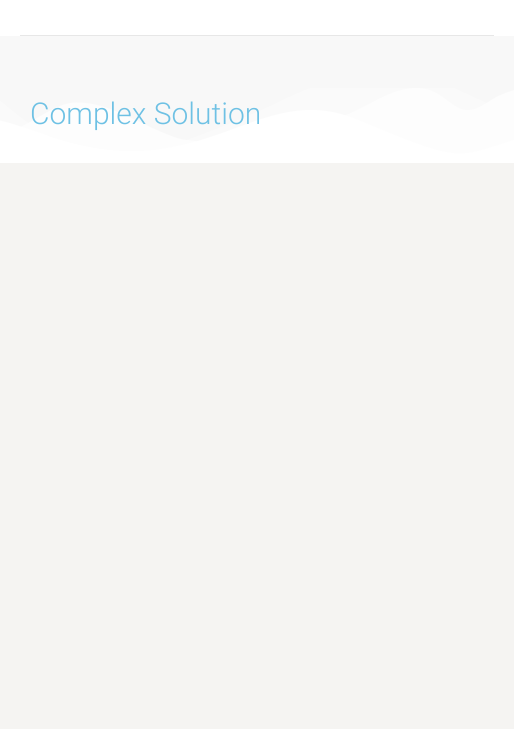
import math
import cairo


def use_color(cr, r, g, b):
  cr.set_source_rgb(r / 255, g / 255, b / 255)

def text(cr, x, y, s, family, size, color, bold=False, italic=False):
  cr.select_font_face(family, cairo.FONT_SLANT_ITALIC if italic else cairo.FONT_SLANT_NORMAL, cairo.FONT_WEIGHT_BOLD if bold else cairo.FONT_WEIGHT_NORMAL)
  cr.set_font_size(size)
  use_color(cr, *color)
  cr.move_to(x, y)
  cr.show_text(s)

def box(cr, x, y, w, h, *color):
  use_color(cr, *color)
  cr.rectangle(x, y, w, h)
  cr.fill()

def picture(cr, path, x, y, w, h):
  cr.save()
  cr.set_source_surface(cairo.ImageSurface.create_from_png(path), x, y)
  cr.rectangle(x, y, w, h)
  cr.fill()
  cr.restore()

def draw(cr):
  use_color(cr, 245, 244, 242)
  cr.paint()
  box(cr, 0, 0, 514, 36, 255, 255, 255)
  box(cr, 20, 35, 474, 1, 231, 231, 231)
  box(cr, 0, 36, 514, 118, 248, 248, 248)
  picture(cr, "img_01.png", 0, 88, 514, 75)
  text(cr, 30, 124, "Complex Solution", "Roboto Light", 30, (110, 193, 228))


surface = cairo.ImageSurface(cairo.FORMAT_RGB24, 514, 729)
cr = cairo.Context(surface)
options = cairo.FontOptions()
options.set_hint_metrics(cairo.HINT_METRICS_OFF)
options.set_hint_style(cairo.HINT_STYLE_NONE)
cr.set_font_options(options)
cr.set_miter_limit(4)
draw(cr)
surface.write_to_png("out.png")
